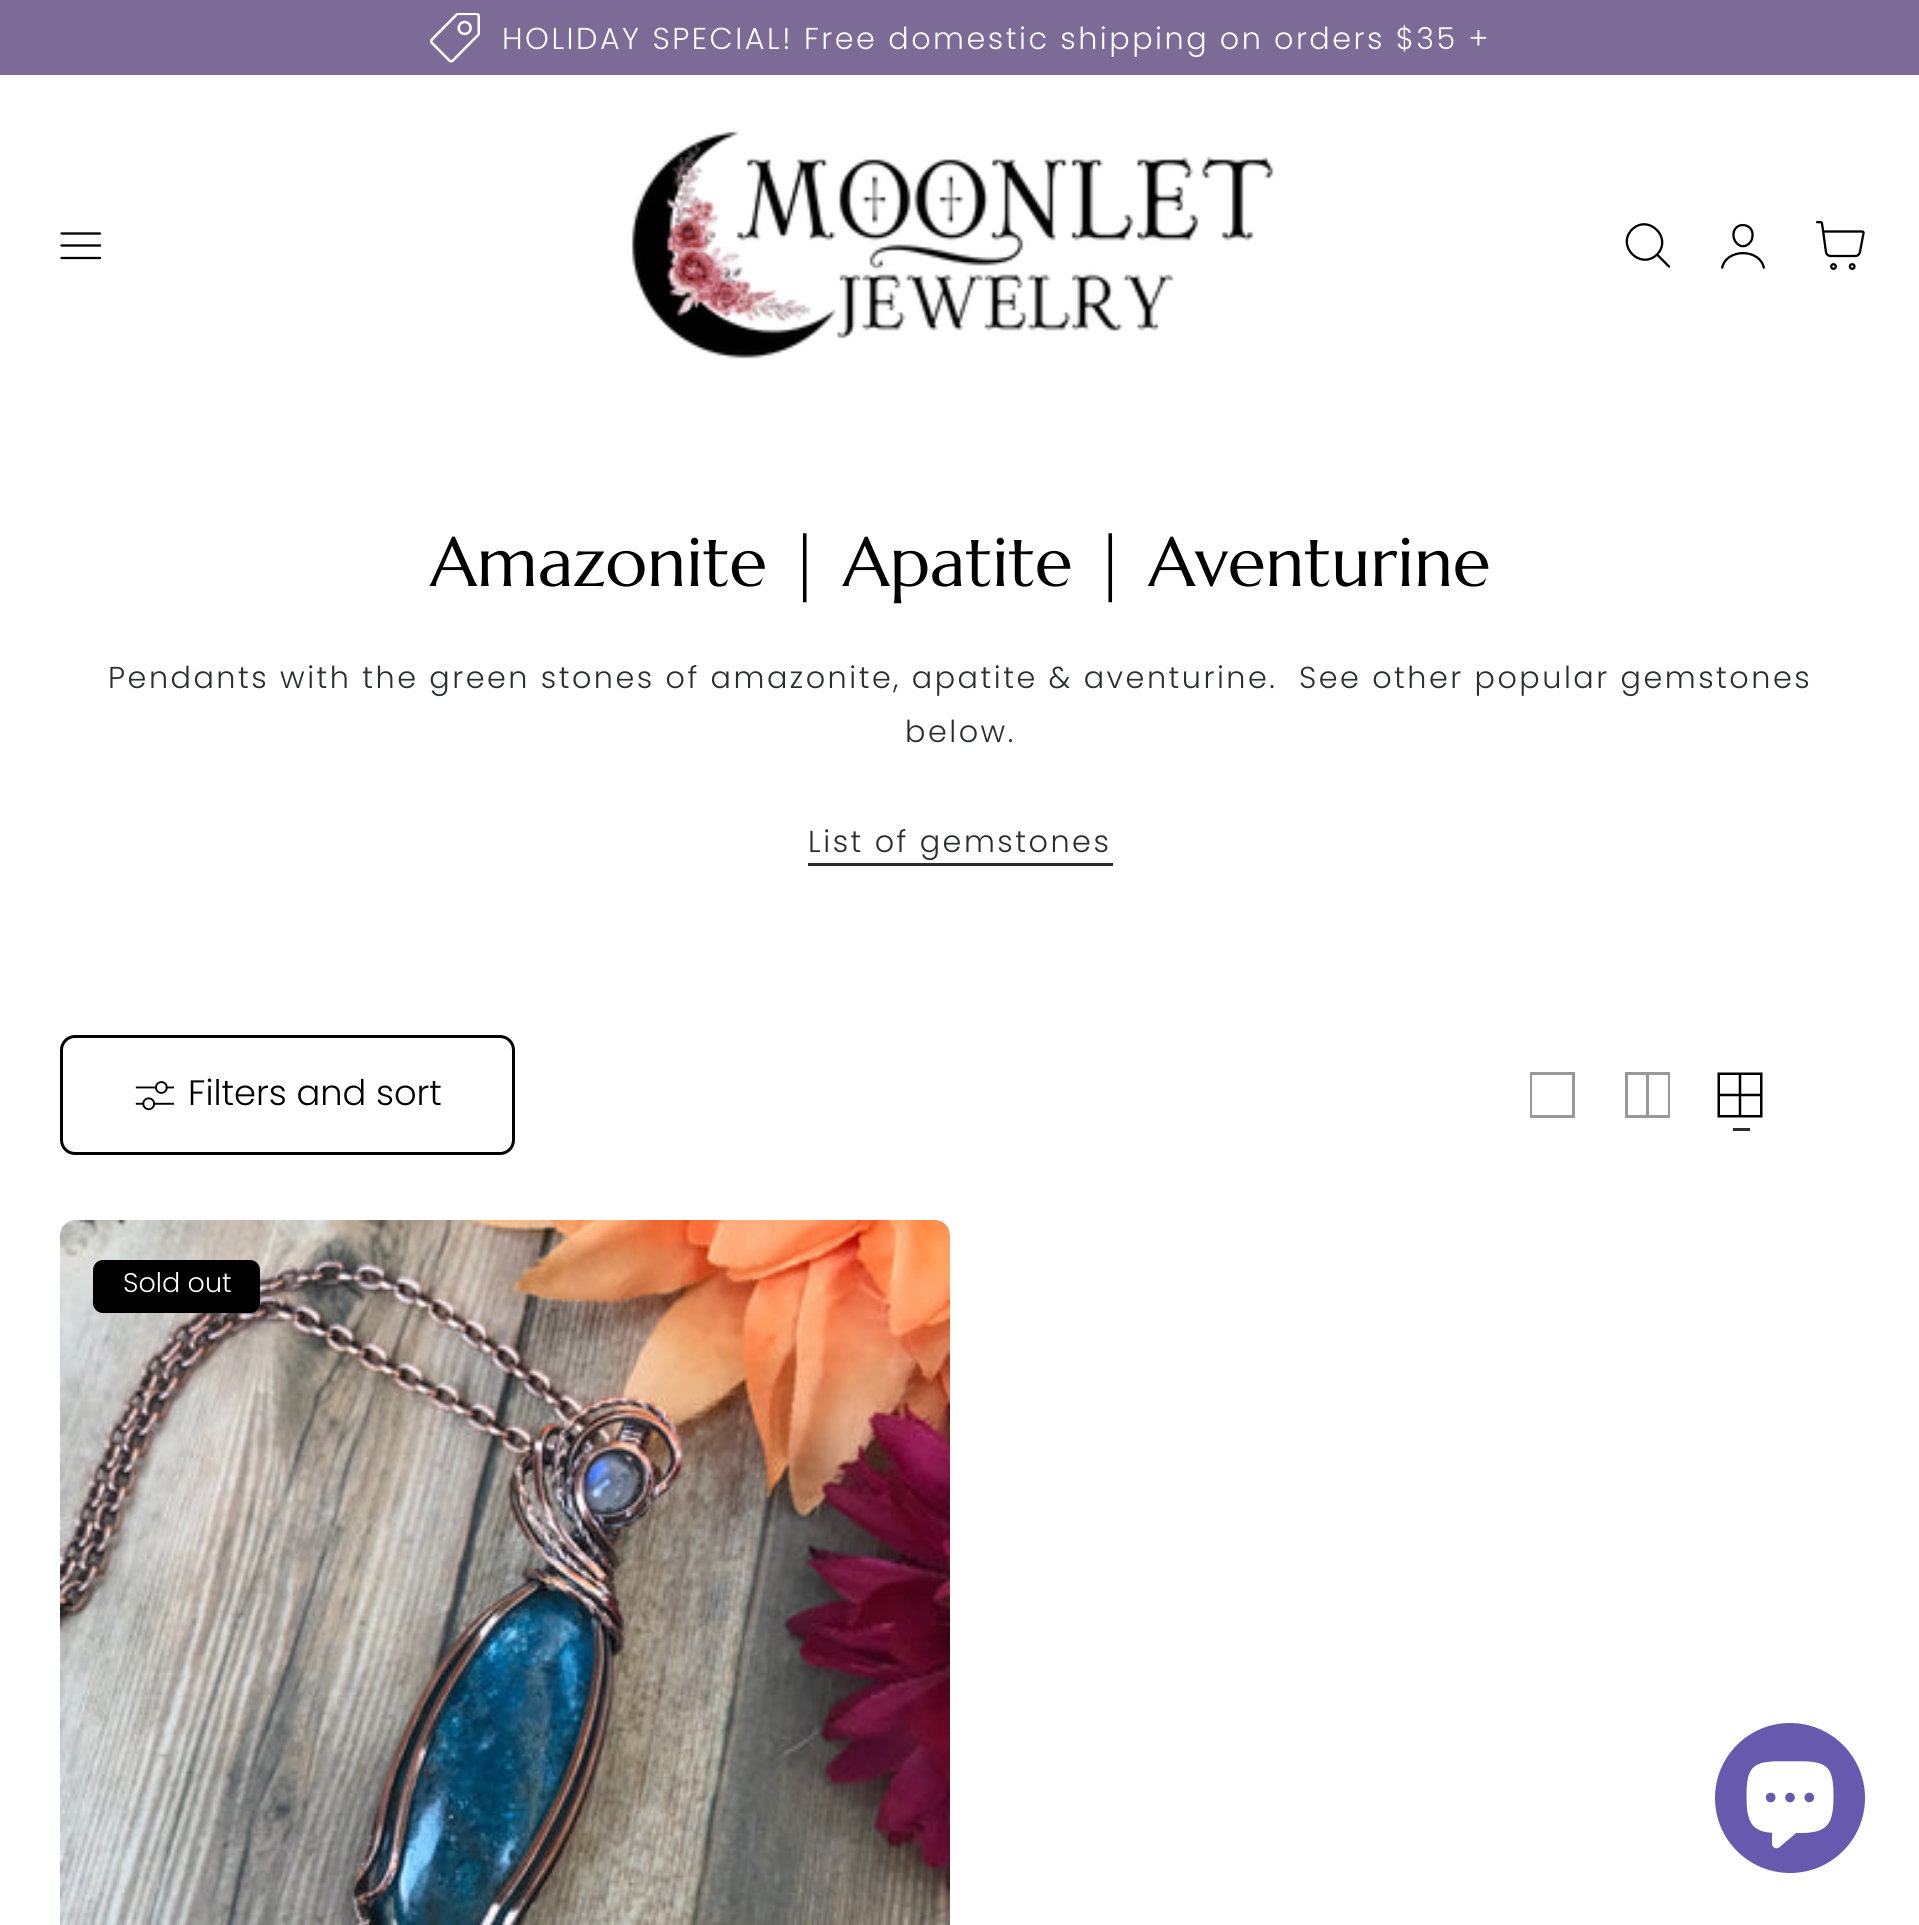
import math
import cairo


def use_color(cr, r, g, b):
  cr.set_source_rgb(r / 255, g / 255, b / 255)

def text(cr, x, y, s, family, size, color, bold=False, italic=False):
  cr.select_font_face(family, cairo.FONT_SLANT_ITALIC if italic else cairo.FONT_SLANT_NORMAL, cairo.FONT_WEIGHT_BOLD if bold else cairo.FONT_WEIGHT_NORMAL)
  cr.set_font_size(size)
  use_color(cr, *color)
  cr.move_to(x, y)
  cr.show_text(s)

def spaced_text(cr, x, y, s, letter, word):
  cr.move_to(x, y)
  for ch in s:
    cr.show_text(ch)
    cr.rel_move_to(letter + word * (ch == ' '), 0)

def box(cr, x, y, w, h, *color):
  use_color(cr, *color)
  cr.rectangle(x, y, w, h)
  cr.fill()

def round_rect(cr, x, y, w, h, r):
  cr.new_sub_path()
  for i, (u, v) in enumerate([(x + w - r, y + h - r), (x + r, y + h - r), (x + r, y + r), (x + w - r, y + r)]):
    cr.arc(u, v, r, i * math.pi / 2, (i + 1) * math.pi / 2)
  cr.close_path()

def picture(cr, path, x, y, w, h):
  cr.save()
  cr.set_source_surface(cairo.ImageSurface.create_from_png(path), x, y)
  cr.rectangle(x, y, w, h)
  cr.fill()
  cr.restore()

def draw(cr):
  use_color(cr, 255, 255, 255)
  cr.paint()
  box(cr, 0, 0, 1919, 75, 124, 107, 151)
  picture(cr, "img_01.png", 430, 13, 50, 50)
  cr.new_path()
  cr.move_to(61.5, 233.5)
  cr.line_to(100, 233.5)
  cr.move_to(61.5, 245.5)
  cr.line_to(100, 245.5)
  cr.move_to(61.5, 258)
  cr.line_to(100, 258)
  use_color(cr, 0, 0, 0)
  cr.set_line_width(2.3)
  cr.set_line_cap(cairo.LINE_CAP_ROUND)
  cr.set_line_join(cairo.LINE_JOIN_ROUND)
  cr.stroke()
  picture(cr, "img_02.png", 631, 130, 643, 229)
  cr.new_path()
  cr.move_to(1669, 266.5)
  cr.line_to(1657, 254.5)
  cr.move_to(1657, 254.5)
  cr.curve_to(1673, 238, 1648.5, 213.5, 1632, 229.5)
  cr.curve_to(1616, 246, 1640.5, 270.5, 1657, 254.5)
  cr.close_path()
  cr.stroke()
  cr.new_path()
  cr.move_to(1752.5, 235.5)
  cr.curve_to(1752.5, 238.5, 1751.5, 241, 1749.5, 243)
  cr.curve_to(1742, 251, 1732.5, 242.5, 1733.5, 233.5)
  cr.curve_to(1735, 221, 1753.5, 223, 1752.5, 235.5)
  cr.close_path()
  cr.stroke()
  cr.new_path()
  cr.move_to(1722, 268.5)
  cr.curve_to(1725.5, 248, 1760.5, 248, 1764, 268.5)
  cr.set_line_cap(cairo.LINE_CAP_BUTT)
  cr.set_line_join(cairo.LINE_JOIN_MITER)
  cr.stroke()
  picture(cr, "img_03.png", 1816, 221, 49, 49)
  box(cr, 808, 863, 305, 3, 44, 45, 46)
  round_rect(cr, 61.5, 1036.5, 452, 117, 13.5)
  use_color(cr, 0, 0, 0)
  cr.set_line_width(3)
  cr.stroke()
  picture(cr, "img_04.png", 135, 1081, 39, 30)
  use_color(cr, 153, 153, 153)
  cr.new_path()
  cr.move_to(1575, 1118)
  cr.line_to(1530, 1118)
  cr.line_to(1530, 1072)
  cr.line_to(1575, 1072)
  cr.close_path()
  cr.move_to(1532, 1115)
  cr.line_to(1572, 1115)
  cr.line_to(1572, 1075)
  cr.line_to(1532, 1075)
  cr.close_path()
  cr.fill()
  cr.set_fill_rule(cairo.FILL_RULE_EVEN_ODD)
  cr.new_path()
  cr.move_to(1649, 1075)
  cr.line_to(1668, 1075)
  cr.line_to(1668, 1115)
  cr.line_to(1649, 1115)
  cr.close_path()
  cr.move_to(1646, 1072)
  cr.line_to(1670, 1072)
  cr.line_to(1670, 1118)
  cr.line_to(1625, 1118)
  cr.line_to(1625, 1072)
  cr.close_path()
  cr.move_to(1646, 1115)
  cr.line_to(1628, 1115)
  cr.line_to(1628, 1075)
  cr.line_to(1646, 1075)
  cr.close_path()
  cr.fill()
  picture(cr, "img_05.png", 1717, 1072, 46, 46)
  box(cr, 1733, 1128, 17, 3, 44, 45, 46)
  use_color(cr, 245, 245, 245)
  round_rect(cr, 60, 1220, 890, 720, 15)
  cr.fill()
  picture(cr, "img_06.png", 60, 1220, 890, 705)
  use_color(cr, 0, 0, 0)
  round_rect(cr, 93, 1260, 167, 53, 10)
  cr.fill()
  use_color(cr, 102, 89, 174)
  cr.arc(1790, 1798, 75, 0, 2 * math.pi)
  cr.fill()
  picture(cr, "img_07.png", 1746, 1761, 88, 88)
  cr.select_font_face("Poppins Light")
  cr.set_font_size(30.25)
  use_color(cr, 255, 255, 255)
  spaced_text(cr, 502, 49, "HOLIDAY SPECIAL! Free domestic shipping on", 2.5, 0)
  spaced_text(cr, 1274, 49, "orders $35 +", 2.5, 0)
  text(cr, 430, 586, "Amazonite | Apatite | Aventurine", "Marcellus", 69, (0, 0, 0))
  cr.select_font_face("Poppins Light")
  cr.set_font_size(30.25)
  use_color(cr, 44, 45, 46)
  spaced_text(cr, 108, 688, "Pendants with the green stones of amazonite, apatite & aventurine.  See other popular gemstones", 2.5, 0)
  spaced_text(cr, 905, 742, "below.", 2.5, 0)
  spaced_text(cr, 808, 852, "List of gemstones", 2.5, 0)
  text(cr, 188, 1105, "Filters and sort", "Poppins Light", 35.25, (0, 0, 0))
  text(cr, 123, 1292, "Sold out", "Poppins Light", 27, (255, 255, 255))


surface = cairo.ImageSurface(cairo.FORMAT_RGB24, 1919, 1925)
cr = cairo.Context(surface)
options = cairo.FontOptions()
options.set_hint_metrics(cairo.HINT_METRICS_OFF)
options.set_hint_style(cairo.HINT_STYLE_NONE)
cr.set_font_options(options)
cr.set_miter_limit(4)
draw(cr)
surface.write_to_png("out.png")
